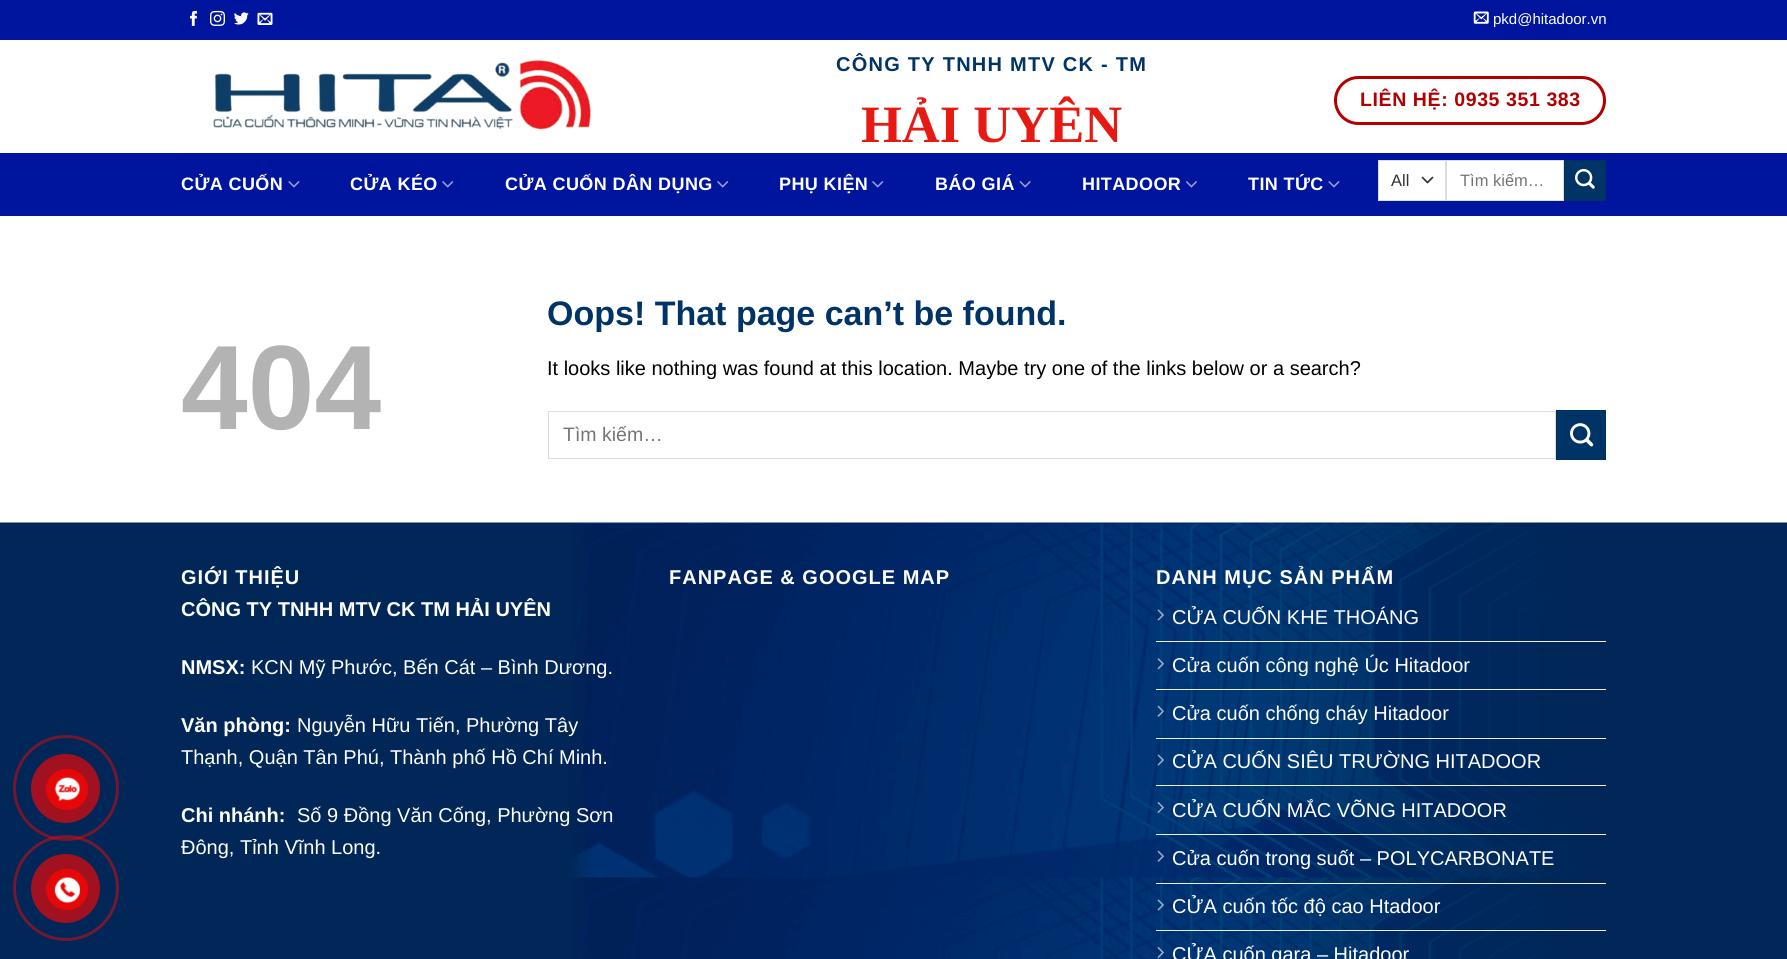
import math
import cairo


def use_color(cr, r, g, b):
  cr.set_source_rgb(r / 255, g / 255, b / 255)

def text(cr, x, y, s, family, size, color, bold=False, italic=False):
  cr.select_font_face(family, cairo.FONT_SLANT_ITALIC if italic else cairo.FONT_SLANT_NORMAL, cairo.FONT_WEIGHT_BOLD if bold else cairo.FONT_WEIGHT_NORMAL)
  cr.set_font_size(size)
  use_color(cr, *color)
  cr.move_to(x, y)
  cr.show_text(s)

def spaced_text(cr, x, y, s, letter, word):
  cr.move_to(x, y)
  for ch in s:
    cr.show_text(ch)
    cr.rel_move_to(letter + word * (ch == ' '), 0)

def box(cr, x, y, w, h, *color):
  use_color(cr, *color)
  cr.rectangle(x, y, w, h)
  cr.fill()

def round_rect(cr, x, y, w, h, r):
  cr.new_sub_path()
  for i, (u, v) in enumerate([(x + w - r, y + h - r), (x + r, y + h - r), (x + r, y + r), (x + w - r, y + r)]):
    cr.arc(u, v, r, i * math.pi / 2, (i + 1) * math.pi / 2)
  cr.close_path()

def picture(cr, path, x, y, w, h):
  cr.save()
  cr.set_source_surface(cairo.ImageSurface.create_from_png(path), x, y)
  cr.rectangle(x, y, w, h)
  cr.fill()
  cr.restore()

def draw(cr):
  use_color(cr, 255, 255, 255)
  cr.paint()
  picture(cr, "img_15.png", 0, 522, 1787, 437)
  cr.arc(66, 888, 51.5, 0, 2 * math.pi)
  use_color(cr, 115, 24, 48)
  cr.set_line_width(3)
  cr.stroke()
  cr.arc(66, 788, 51.5, 0, 2 * math.pi)
  cr.set_source_rgba(0.902, 0.031, 0.031, 0.5)
  cr.stroke()
  use_color(cr, 161, 17, 32)
  cr.arc(65.5, 788.5, 34.5, 0, 2 * math.pi)
  cr.fill()
  use_color(cr, 230, 8, 8)
  round_rect(cr, 46, 769, 42, 41, 20.5)
  cr.fill()
  picture(cr, "img_01.png", 54, 777, 26, 25)
  use_color(cr, 161, 17, 32)
  cr.arc(65.5, 888.5, 34.5, 0, 2 * math.pi)
  cr.fill()
  use_color(cr, 230, 8, 8)
  round_rect(cr, 46, 869, 42, 41, 20.5)
  cr.fill()
  picture(cr, "img_02.png", 54, 877, 26, 26)
  box(cr, 0, 0, 1787, 40, 0, 21, 157)
  picture(cr, "img_03.png", 190, 10, 7, 16)
  picture(cr, "img_04.png", 210, 10, 15, 16)
  picture(cr, "img_05.png", 234, 12, 15, 13)
  picture(cr, "img_06.png", 257, 12, 16, 13)
  picture(cr, "img_07.png", 1473, 11, 16, 13)
  picture(cr, "img_08.png", 213, 60, 378, 70)
  round_rect(cr, 1335.5, 77.5, 269, 46, 23)
  use_color(cr, 178, 0, 0)
  cr.stroke()
  box(cr, 0, 153, 1787, 63, 0, 21, 157)
  box(cr, 181, 153, 1425, 1, 0, 19, 141)
  picture(cr, "img_09.png", 288, 181, 12, 7)
  picture(cr, "img_10.png", 442, 181, 12, 7)
  picture(cr, "img_10.png", 717, 181, 12, 7)
  picture(cr, "img_10.png", 872, 181, 12, 7)
  picture(cr, "img_11.png", 1019, 181, 12, 7)
  picture(cr, "img_12.png", 1186, 181, 11, 7)
  picture(cr, "img_09.png", 1328, 181, 12, 7)
  box(cr, 1379, 161, 66, 39, 255, 255, 255)
  cr.new_path()
  cr.move_to(1422.5, 177.5)
  cr.line_to(1427.5, 182.5)
  cr.line_to(1432.5, 177.5)
  use_color(cr, 51, 51, 51)
  cr.set_line_width(1.7)
  cr.set_line_cap(cairo.LINE_CAP_ROUND)
  cr.set_line_join(cairo.LINE_JOIN_ROUND)
  cr.stroke()
  cr.rectangle(1378.5, 160.5, 67, 40)
  use_color(cr, 221, 221, 221)
  cr.set_line_width(1)
  cr.set_line_cap(cairo.LINE_CAP_BUTT)
  cr.set_line_join(cairo.LINE_JOIN_MITER)
  cr.stroke()
  use_color(cr, 255, 255, 255)
  cr.rectangle(1446.5, 160.5, 117, 40)
  cr.fill_preserve()
  use_color(cr, 221, 221, 221)
  cr.stroke()
  use_color(cr, 0, 51, 102)
  cr.rectangle(1564.5, 160.5, 41, 40)
  cr.fill_preserve()
  use_color(cr, 0, 48, 97)
  cr.stroke()
  picture(cr, "img_13.png", 1575, 168, 20, 21)
  cr.rectangle(548.5, 411.5, 1007, 47)
  use_color(cr, 221, 221, 221)
  cr.stroke()
  use_color(cr, 0, 51, 102)
  cr.rectangle(1556.5, 410.5, 49, 49)
  cr.fill_preserve()
  use_color(cr, 0, 48, 97)
  cr.stroke()
  picture(cr, "img_14.png", 1570, 423, 24, 24)
  cr.set_source_rgba(0, 0, 0, 0.05)
  cr.rectangle(0, 523, 1787, 1)
  cr.fill()
  picture(cr, "img_16.png", 1157, 609, 7, 12)
  box(cr, 1156, 641, 450, 1, 236, 236, 236)
  picture(cr, "img_17.png", 1157, 658, 7, 12)
  box(cr, 1156, 689, 450, 1, 236, 236, 236)
  picture(cr, "img_18.png", 1157, 705, 7, 12)
  box(cr, 1156, 738, 450, 1, 236, 236, 236)
  picture(cr, "img_19.png", 1157, 754, 7, 12)
  box(cr, 1156, 785, 450, 1, 236, 236, 236)
  picture(cr, "img_20.png", 1157, 802, 7, 11)
  box(cr, 1156, 834, 450, 1, 236, 236, 236)
  picture(cr, "img_21.png", 1157, 850, 7, 12)
  box(cr, 1156, 883, 450, 1, 236, 236, 236)
  picture(cr, "img_22.png", 1157, 899, 7, 12)
  box(cr, 1156, 930, 450, 1, 236, 236, 236)
  picture(cr, "img_23.png", 1157, 947, 7, 11)
  text(cr, 1493, 24, "pkd@hitadoor.vn", "Liberation Sans", 15, (255, 255, 255))
  cr.select_font_face("Liberation Sans", cairo.FONT_SLANT_NORMAL, cairo.FONT_WEIGHT_BOLD)
  cr.set_font_size(20)
  use_color(cr, 0, 51, 102)
  spaced_text(cr, 836, 71, "CÔNG TY TNHH MTV CK - TM", 1.25, 0)
  text(cr, 861, 142, "HẢI UYÊN", "Liberation Serif", 52.5, (231, 26, 19), bold=True)
  cr.select_font_face("Liberation Sans", cairo.FONT_SLANT_NORMAL, cairo.FONT_WEIGHT_BOLD)
  cr.set_font_size(19.5)
  use_color(cr, 178, 0, 0)
  spaced_text(cr, 1360, 106, "LIÊN HỆ: 0935 351 383", 0.6, 0)
  cr.set_font_size(18)
  use_color(cr, 255, 255, 255)
  spaced_text(cr, 181, 190, "CỬA CUỐN", 0.4, 0)
  spaced_text(cr, 350, 190, "CỬA KÉO", 0.4, 0)
  spaced_text(cr, 505, 190, "CỬA CUỐN DÂN DỤNG", 0.4, 0)
  spaced_text(cr, 779, 190, "PHỤ KIỆN", 0.4, 0)
  spaced_text(cr, 935, 190, "BÁO GIÁ", 0.4, 0)
  spaced_text(cr, 1082, 190, "HITADOOR", 0.4, 0)
  spaced_text(cr, 1248, 190, "TIN TỨC", 0.4, 0)
  text(cr, 1391, 186, "All", "Liberation Sans", 16.5, (51, 51, 51))
  text(cr, 1460, 186, "Tìm kiếm…", "Liberation Sans", 16.5, (117, 117, 117))
  text(cr, 181, 429, "404", "Liberation Sans", 120, (179, 179, 179), bold=True)
  text(cr, 547, 325, "Oops! That page can’t be found.", "Liberation Sans", 34, (0, 51, 102), bold=True)
  text(cr, 547, 375, "It looks like nothing was found at this location. Maybe try one of the links below or a search?", "Liberation Sans", 20, (0, 0, 0))
  text(cr, 563, 441, "Tìm kiếm…", "Liberation Sans", 19.5, (117, 117, 117))
  cr.select_font_face("Liberation Sans", cairo.FONT_SLANT_NORMAL, cairo.FONT_WEIGHT_BOLD)
  cr.set_font_size(20)
  use_color(cr, 255, 255, 255)
  spaced_text(cr, 181, 584, "GIỚI THIỆU", 1, 0)
  text(cr, 181, 616, "CÔNG TY TNHH MTV CK TM HẢI UYÊN", "Liberation Sans", 20, (255, 255, 255), bold=True)
  text(cr, 181, 674, "NMSX:", "Liberation Sans", 20, (255, 255, 255), bold=True)
  text(cr, 251, 674, "KCN Mỹ Phước, Bến Cát – Bình Dương.", "Liberation Sans", 20, (255, 255, 255))
  text(cr, 181, 732, "Văn phòng:", "Liberation Sans", 20, (255, 255, 255), bold=True)
  text(cr, 297, 732, "Nguyễn Hữu Tiến, Phường Tây", "Liberation Sans", 20, (255, 255, 255))
  text(cr, 181, 764, "Thạnh, Quận Tân Phú, Thành phố Hồ Chí Minh.", "Liberation Sans", 20, (255, 255, 255))
  text(cr, 181, 822, "Chi nhánh:", "Liberation Sans", 20, (255, 255, 255), bold=True)
  text(cr, 297, 822, "Số 9 Đồng Văn Cống, Phường Sơn", "Liberation Sans", 20, (255, 255, 255))
  text(cr, 181, 854, "Đông, Tỉnh Vĩnh Long.", "Liberation Sans", 20, (255, 255, 255))
  cr.select_font_face("Liberation Sans", cairo.FONT_SLANT_NORMAL, cairo.FONT_WEIGHT_BOLD)
  spaced_text(cr, 669, 584, "FANPAGE & GOOGLE MAP", 1, 0)
  spaced_text(cr, 1156, 584, "DANH MỤC SẢN PHẨM", 1, 0)
  text(cr, 1172, 624, "CỬA CUỐN KHE THOÁNG", "Liberation Sans", 20, (255, 255, 255))
  text(cr, 1172, 672, "Cửa cuốn công nghệ Úc Hitadoor", "Liberation Sans", 20, (255, 255, 255))
  text(cr, 1172, 720, "Cửa cuốn chống cháy Hitadoor", "Liberation Sans", 20, (255, 255, 255))
  text(cr, 1172, 768, "CỬA CUỐN SIÊU TRƯỜNG HITADOOR", "Liberation Sans", 20, (255, 255, 255))
  text(cr, 1172, 817, "CỬA CUỐN MẮC VÕNG HITADOOR", "Liberation Sans", 20, (255, 255, 255))
  text(cr, 1172, 865, "Cửa cuốn trong suốt – POLYCARBONATE", "Liberation Sans", 20, (255, 255, 255))
  text(cr, 1172, 913, "CỬA cuốn tốc độ cao Htadoor", "Liberation Sans", 20, (255, 255, 255))
  text(cr, 1172, 961, "CỬA cuốn gara – Hitadoor", "Liberation Sans", 20, (255, 255, 255))


surface = cairo.ImageSurface(cairo.FORMAT_RGB24, 1787, 959)
cr = cairo.Context(surface)
options = cairo.FontOptions()
options.set_hint_metrics(cairo.HINT_METRICS_OFF)
options.set_hint_style(cairo.HINT_STYLE_NONE)
cr.set_font_options(options)
cr.set_miter_limit(4)
draw(cr)
surface.write_to_png("out.png")
